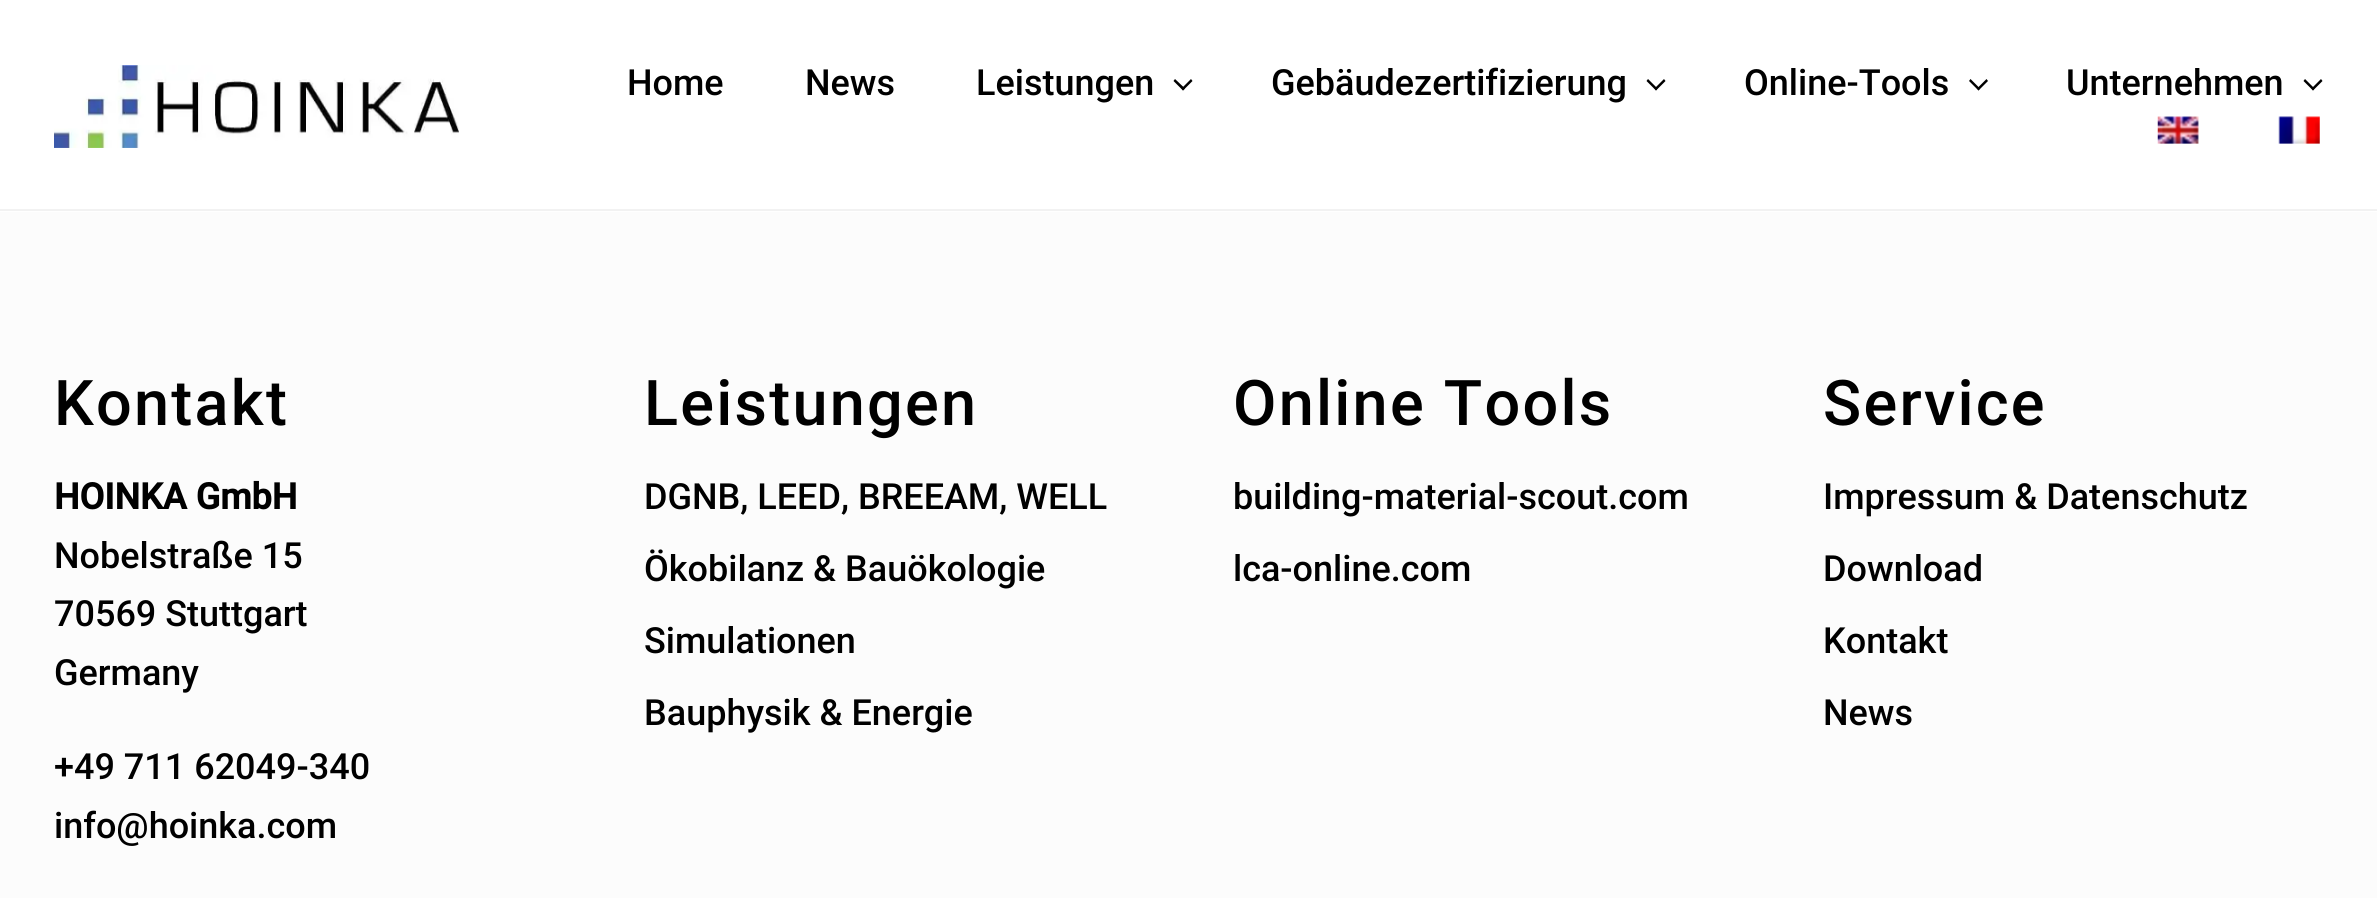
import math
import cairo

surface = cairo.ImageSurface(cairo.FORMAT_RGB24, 2377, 898)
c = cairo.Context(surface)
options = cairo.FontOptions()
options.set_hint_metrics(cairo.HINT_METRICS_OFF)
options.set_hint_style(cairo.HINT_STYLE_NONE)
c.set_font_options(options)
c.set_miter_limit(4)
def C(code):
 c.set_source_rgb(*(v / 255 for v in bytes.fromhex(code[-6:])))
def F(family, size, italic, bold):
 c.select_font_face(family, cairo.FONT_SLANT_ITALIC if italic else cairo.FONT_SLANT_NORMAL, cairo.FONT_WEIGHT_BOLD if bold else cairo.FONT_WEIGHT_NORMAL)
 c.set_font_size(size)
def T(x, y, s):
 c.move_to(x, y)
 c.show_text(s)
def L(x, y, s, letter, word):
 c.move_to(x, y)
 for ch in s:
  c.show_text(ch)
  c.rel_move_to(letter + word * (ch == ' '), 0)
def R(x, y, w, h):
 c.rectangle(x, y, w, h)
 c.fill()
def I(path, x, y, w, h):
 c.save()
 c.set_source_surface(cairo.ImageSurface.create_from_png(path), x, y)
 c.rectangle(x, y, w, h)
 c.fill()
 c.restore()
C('fcfcfc')
c.paint()
C('ffffff')
R(0,0,2377,212)
C('f2f2f2')
R(0,209,2377,2)
I('1.png',54,65,405,83)
F('Roboto Medium',36,0,0)
C('000000')
T(627,95,'Home')
T(805,95,'News')
T(976,95,'Leistungen')
c.new_path()
c.move_to(1191,79)
c.line_to(1192.5,81)
c.line_to(1183,90.5)
c.line_to(1181.5,88.5)
c.close_path()
c.fill()
c.new_path()
c.move_to(1175,79)
c.line_to(1185,88.5)
c.line_to(1183,90.5)
c.line_to(1173.5,81)
c.close_path()
c.fill()
T(1271,95,'Gebäudezertifizierung')
c.new_path()
c.move_to(1664,79)
c.line_to(1665.5,81)
c.line_to(1656,90.5)
c.line_to(1654.5,88.5)
c.close_path()
c.fill()
c.new_path()
c.move_to(1648,79)
c.line_to(1657.5,88.5)
c.line_to(1656,90.5)
c.line_to(1646.5,81)
c.close_path()
c.fill()
T(1744,95,'Online-Tools')
c.new_path()
c.move_to(1986.5,79)
c.line_to(1988,81)
c.line_to(1978.5,90.5)
c.line_to(1977,88.5)
c.close_path()
c.fill()
c.new_path()
c.move_to(1970.5,79)
c.line_to(1980,88.5)
c.line_to(1978.5,90.5)
c.line_to(1969,81)
c.close_path()
c.fill()
T(2066,95,'Unternehmen')
c.new_path()
c.move_to(2321,79)
c.line_to(2322.5,81)
c.line_to(2313,90.5)
c.line_to(2311.5,88.5)
c.close_path()
c.fill()
c.new_path()
c.move_to(2305,79)
c.line_to(2314.5,88.5)
c.line_to(2313,90.5)
c.line_to(2303.5,81)
c.close_path()
c.fill()
I('2.png',2157,116,42,28)
I('3.png',2278,116,42,28)
F('Roboto Medium',63,0,0)
L(54,425,'Kontakt',2.25,0)
F('Roboto',36,0,1)
T(54,509,'HOINKA GmbH')
F('Roboto Medium',36,0,0)
T(54,568,'Nobelstraße 15')
T(54,626,'70569 Stuttgart')
T(54,685,'Germany')
T(54,779,'+49 711 62049-340')
T(54,838,'info@hoinka.com')
F('Roboto Medium',63,0,0)
L(644,425,'Leistungen',2.25,0)
F('Roboto Medium',36,0,0)
T(644,509,'DGNB, LEED, BREEAM, WELL')
T(644,581,'Ökobilanz & Bauökologie')
T(644,653,'Simulationen')
T(644,725,'Bauphysik & Energie')
F('Roboto Medium',63,0,0)
L(1233,425,'Online Tools',2.25,0)
F('Roboto Medium',36,0,0)
T(1233,509,'building-material-scout.com')
T(1233,581,'lca-online.com')
F('Roboto Medium',63,0,0)
L(1823,425,'Service',2.25,0)
F('Roboto Medium',36,0,0)
T(1823,509,'Impressum & Datenschutz')
T(1823,581,'Download')
T(1823,653,'Kontakt')
T(1823,725,'News')
surface.write_to_png('o.png')
